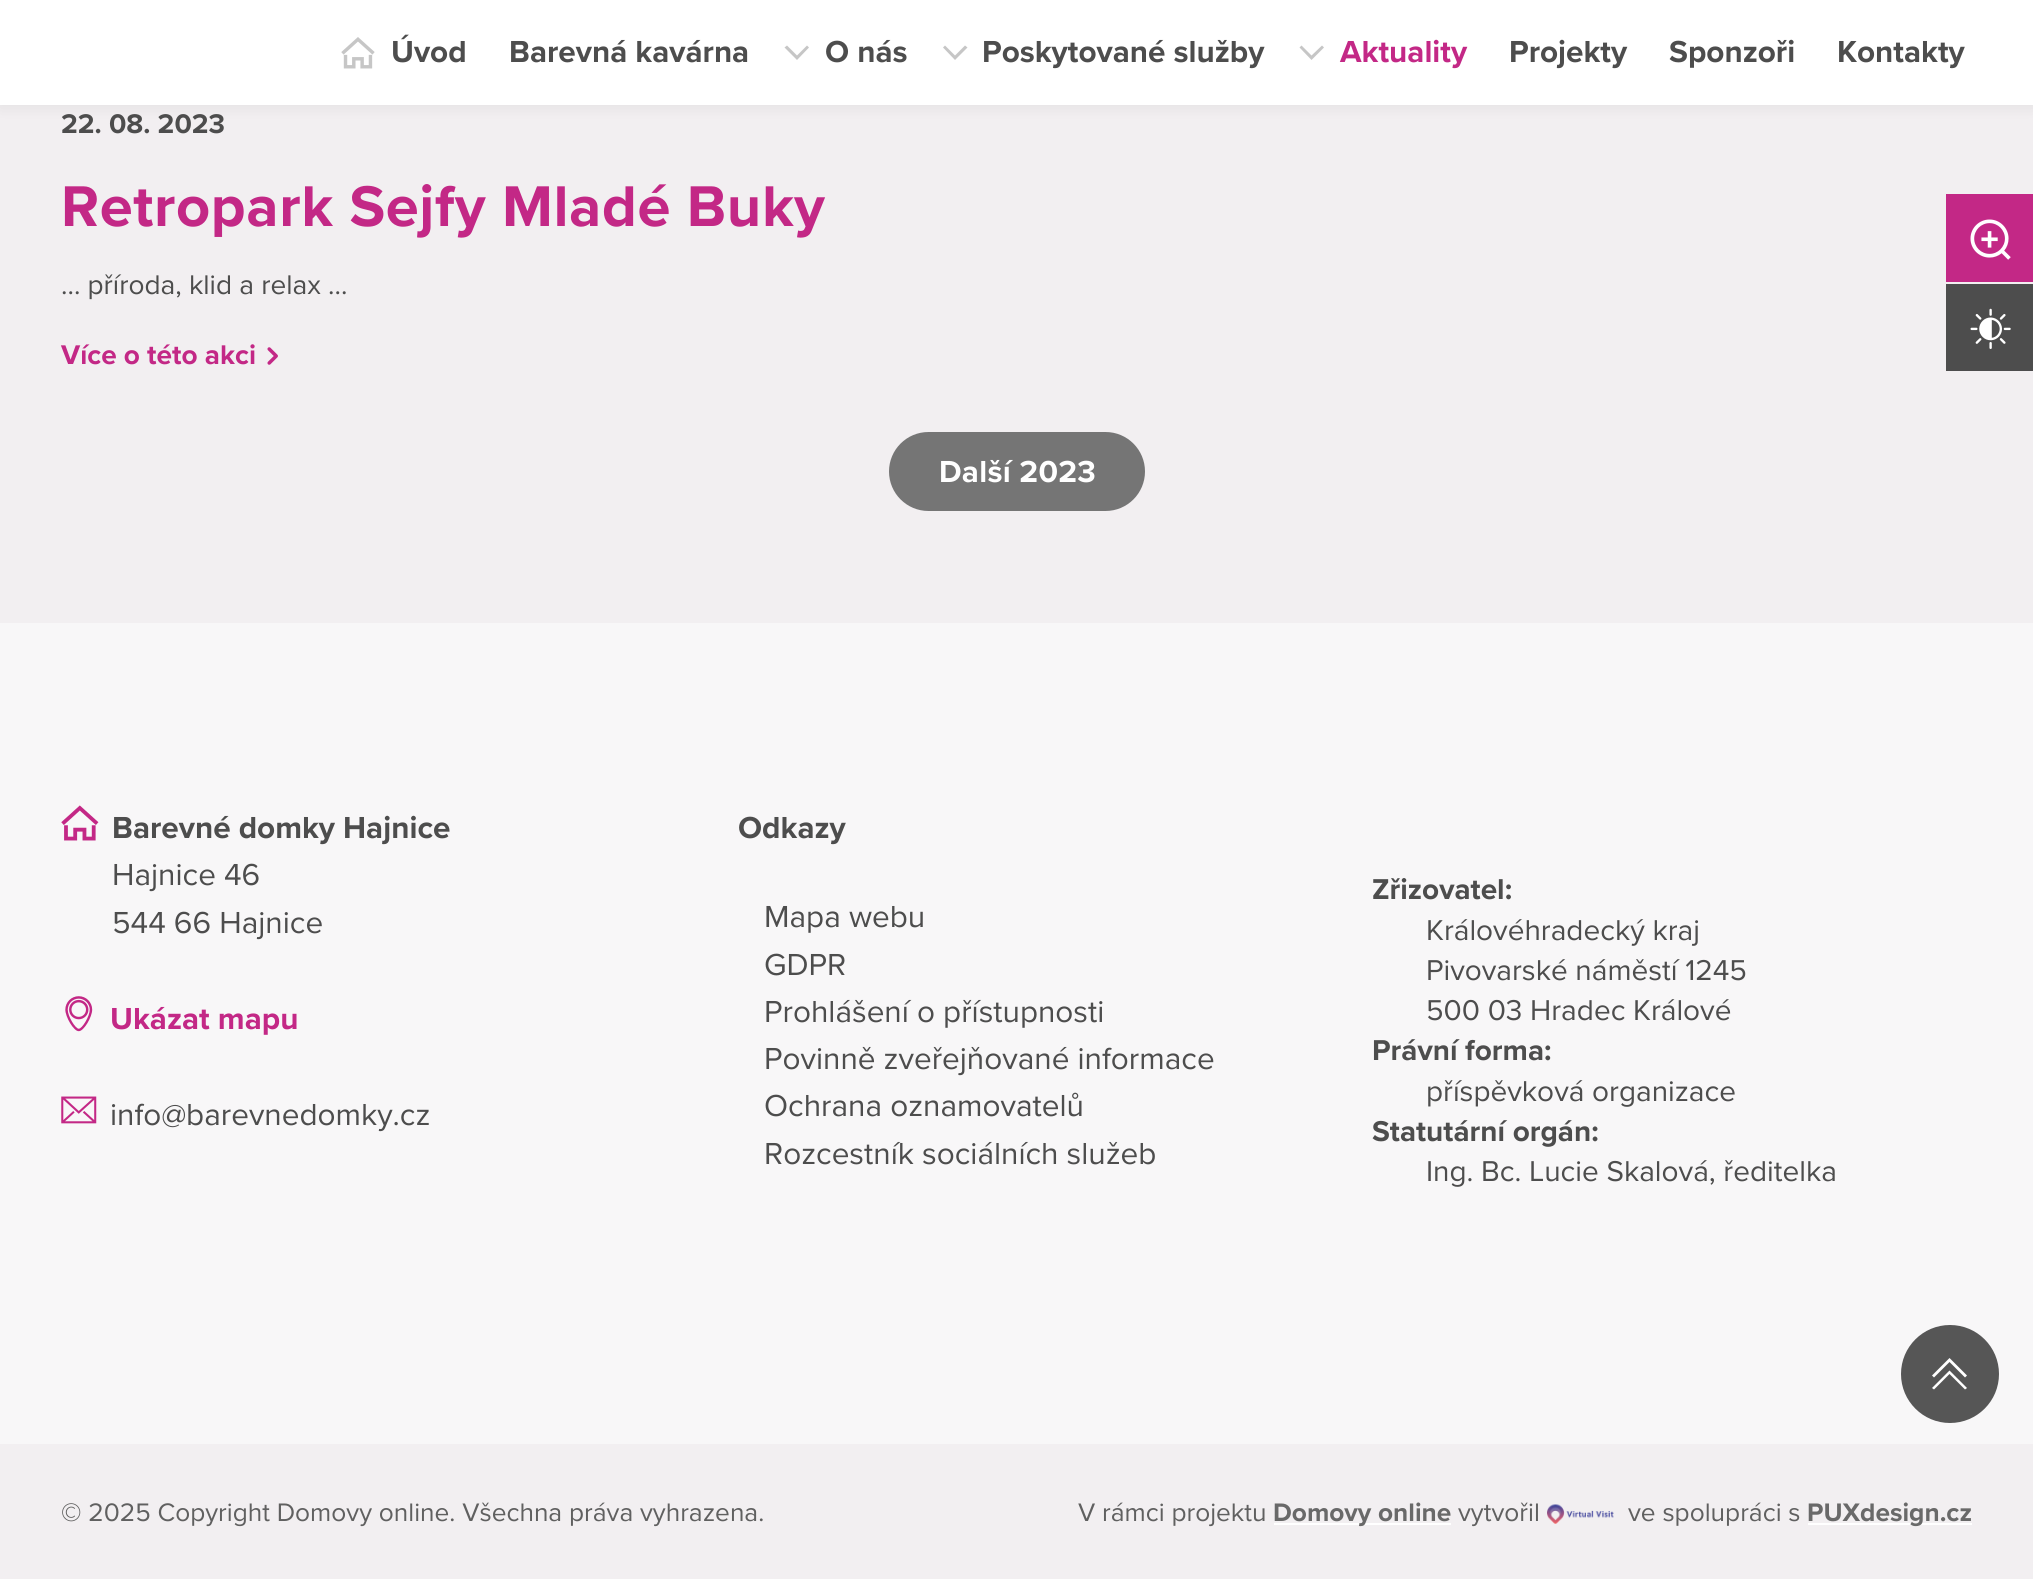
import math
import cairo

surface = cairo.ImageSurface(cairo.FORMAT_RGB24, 2033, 1579)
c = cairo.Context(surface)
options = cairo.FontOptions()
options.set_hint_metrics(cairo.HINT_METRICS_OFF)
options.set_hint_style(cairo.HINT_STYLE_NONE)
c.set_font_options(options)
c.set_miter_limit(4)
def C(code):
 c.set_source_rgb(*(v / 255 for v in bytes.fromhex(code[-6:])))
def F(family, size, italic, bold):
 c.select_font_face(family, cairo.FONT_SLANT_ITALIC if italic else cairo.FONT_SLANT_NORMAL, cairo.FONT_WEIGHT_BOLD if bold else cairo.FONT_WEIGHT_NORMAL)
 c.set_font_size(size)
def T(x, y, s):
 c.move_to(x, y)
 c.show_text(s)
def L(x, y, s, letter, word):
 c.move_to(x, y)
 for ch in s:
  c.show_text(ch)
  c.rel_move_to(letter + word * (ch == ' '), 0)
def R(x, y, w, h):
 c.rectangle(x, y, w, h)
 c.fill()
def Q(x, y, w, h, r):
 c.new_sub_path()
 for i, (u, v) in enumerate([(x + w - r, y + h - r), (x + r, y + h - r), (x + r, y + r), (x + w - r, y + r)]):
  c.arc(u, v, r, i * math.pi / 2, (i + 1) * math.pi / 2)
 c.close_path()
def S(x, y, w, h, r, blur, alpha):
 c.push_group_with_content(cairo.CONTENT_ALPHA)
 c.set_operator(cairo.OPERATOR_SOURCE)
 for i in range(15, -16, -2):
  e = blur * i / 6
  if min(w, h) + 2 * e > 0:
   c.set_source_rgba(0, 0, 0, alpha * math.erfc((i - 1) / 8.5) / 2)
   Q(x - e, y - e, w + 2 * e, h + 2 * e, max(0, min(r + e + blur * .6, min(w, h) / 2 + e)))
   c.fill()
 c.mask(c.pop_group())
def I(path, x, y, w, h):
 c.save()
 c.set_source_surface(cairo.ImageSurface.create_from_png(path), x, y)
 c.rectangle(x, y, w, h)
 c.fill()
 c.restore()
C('f8f7f8')
c.paint()
C('f2eff1')
R(0,105,2033,518)
C('000000')
S(0,-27,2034,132,0,9,.08)
C('ffffff')
R(0,0,2033,105)
I('1.png',341,37,34,32)
F('Proxima Nova',31.5,0,1)
C('4d4d4d')
T(391,62,'Úvod')
T(509,62,'Barevná kavárna')
C('c6c6c6')
c.new_path()
c.move_to(797,60)
c.line_to(809,47.5)
c.line_to(807,45.5)
c.line_to(797,55.5)
c.line_to(787,45.5)
c.line_to(784.5,47.5)
c.close_path()
c.fill()
C('4d4d4d')
T(825,62,'O nás')
C('c6c6c6')
c.new_path()
c.move_to(955,60)
c.line_to(967.5,47.5)
c.line_to(965,45.5)
c.line_to(955,55.5)
c.line_to(945,45.5)
c.line_to(943,47.5)
c.close_path()
c.fill()
C('4d4d4d')
T(982,62,'Poskytované služby')
C('c6c6c6')
c.new_path()
c.move_to(1311.5,60)
c.line_to(1324,47.5)
c.line_to(1322,45.5)
c.line_to(1311.5,55.5)
c.line_to(1301.5,45.5)
c.line_to(1299.5,47.5)
c.close_path()
c.fill()
C('c32886')
T(1340,62,'Aktuality')
C('4d4d4d')
T(1509,62,'Projekty')
T(1669,62,'Sponzoři')
T(1837,62,'Kontakty')
F('Proxima Nova',28,0,1)
T(61,133,'22. 08. 2023')
F('Proxima Nova',59.5,0,1)
C('c32886')
L(61,226,'Retropark Sejfy Mladé Buky',.6,0)
F('Proxima Nova',28,0,0)
C('4d4d4d')
T(61,294,'... příroda, klid a relax ...')
F('Proxima Nova',28,0,1)
C('c32886')
T(61,364,'Více o této akci')
I('2.png',267,347,11,18)
C('757575')
Q(889,432,256,79,39.5)
c.fill()
F('Proxima Nova',31.5,0,1)
C('ffffff')
L(939,482,'Další 2023',.25,0)
C('565656')
c.new_path()
c.arc(1950,1374,49,0,2 * math.pi)
c.fill()
C('ffffff')
c.new_path()
c.move_to(1949.5,1370.5)
c.line_to(1967,1388)
c.line_to(1965,1389.5)
c.line_to(1949.5,1374)
c.line_to(1934,1389.5)
c.line_to(1932,1388)
c.close_path()
c.move_to(1949.5,1362)
c.line_to(1965,1377.5)
c.line_to(1967,1375.5)
c.line_to(1949.5,1358)
c.line_to(1932,1375.5)
c.line_to(1934,1377.5)
c.close_path()
c.fill()
C('c32886')
R(1946,194,87,88)
I('3.png',1970,219,41,41)
C('4d4d4d')
R(1946,284,87,87)
I('4.png',1970,308,41,41)
I('5.png',61,805,38,36)
T(112,838,'Barevné domky Hajnice')
F('Proxima Nova',31.5,0,0)
T(112,885,'Hajnice 46')
T(112,933,'544 66 Hajnice')
I('6.png',65,996,28,36)
F('Proxima Nova',31.5,0,1)
C('c32886')
T(110,1029,'Ukázat mapu')
I('7.png',61,1096,36,28)
F('Proxima Nova',31.5,0,0)
C('4d4d4d')
T(110,1125,'info@barevnedomky.cz')
F('Proxima Nova',31.5,0,1)
T(738,838,'Odkazy')
F('Proxima Nova',31.5,0,0)
T(764,927,'Mapa webu')
T(764,975,'GDPR')
T(764,1022,'Prohlášení o přístupnosti')
T(764,1069,'Povinně zveřejňované informace')
T(764,1116,'Ochrana oznamovatelů')
T(764,1164,'Rozcestník sociálních služeb')
F('Proxima Nova',29.75,0,1)
T(1372,899,'Zřizovatel:')
F('Proxima Nova',29.75,0,0)
T(1426,940,'Královéhradecký kraj')
T(1426,980,'Pivovarské náměstí 1245')
T(1426,1020,'500 03 Hradec Králové')
F('Proxima Nova',29.75,0,1)
T(1372,1060,'Právní forma:')
F('Proxima Nova',29.75,0,0)
T(1426,1101,'příspěvková organizace')
F('Proxima Nova',29.75,0,1)
T(1372,1141,'Statutární orgán:')
F('Proxima Nova',29.75,0,0)
T(1426,1181,'Ing. Bc. Lucie Skalová, ředitelka')
C('f2eff1')
R(0,1444,2033,135)
F('Proxima Nova',26.25,0,0)
C('606060')
T(61,1521,'© 2025 Copyright Domovy online. Všechna práva vyhrazena.')
T(1078,1521,'V rámci projektu')
C('ffffff')
R(1274,1523,177,2)
F('Proxima Nova',26.25,0,1)
C('696969')
T(1273,1521,'Domovy online')
F('Proxima Nova',26.25,0,0)
C('606060')
T(1458,1521,'vytvořil')
I('8.png',1547,1504,67,20)
T(1628,1521,'ve spolupráci s')
C('ffffff')
R(1808,1523,164,2)
F('Proxima Nova',26.25,0,1)
C('696969')
T(1807,1521,'PUXdesign.cz')
surface.write_to_png('o.png')
